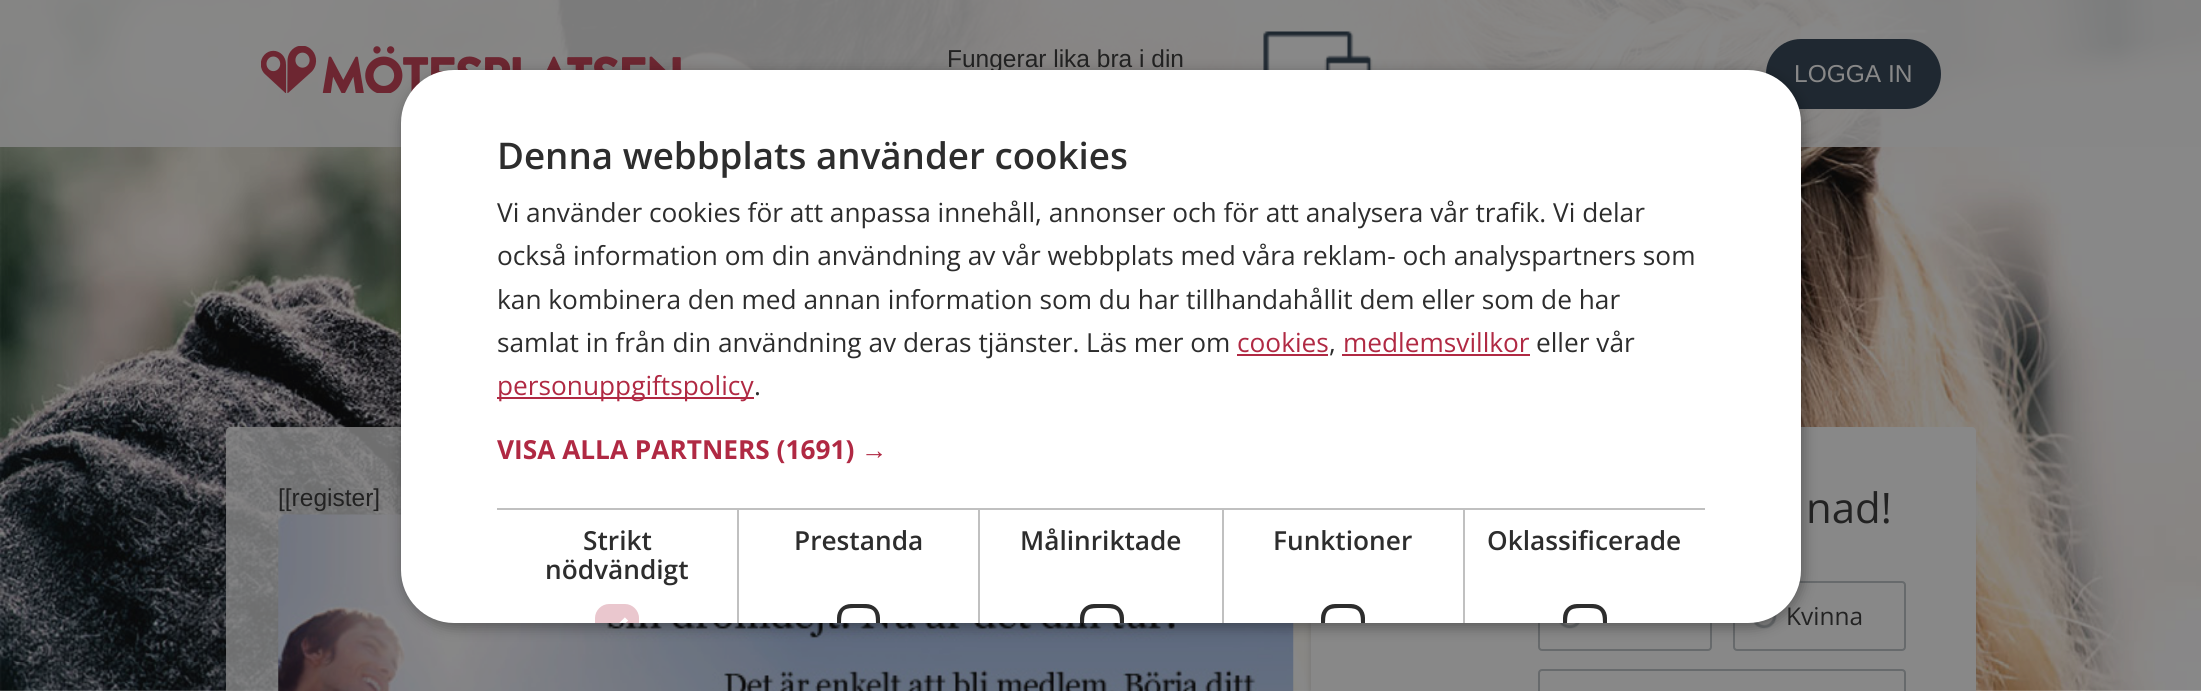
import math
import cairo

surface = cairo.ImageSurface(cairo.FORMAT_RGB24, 2201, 691)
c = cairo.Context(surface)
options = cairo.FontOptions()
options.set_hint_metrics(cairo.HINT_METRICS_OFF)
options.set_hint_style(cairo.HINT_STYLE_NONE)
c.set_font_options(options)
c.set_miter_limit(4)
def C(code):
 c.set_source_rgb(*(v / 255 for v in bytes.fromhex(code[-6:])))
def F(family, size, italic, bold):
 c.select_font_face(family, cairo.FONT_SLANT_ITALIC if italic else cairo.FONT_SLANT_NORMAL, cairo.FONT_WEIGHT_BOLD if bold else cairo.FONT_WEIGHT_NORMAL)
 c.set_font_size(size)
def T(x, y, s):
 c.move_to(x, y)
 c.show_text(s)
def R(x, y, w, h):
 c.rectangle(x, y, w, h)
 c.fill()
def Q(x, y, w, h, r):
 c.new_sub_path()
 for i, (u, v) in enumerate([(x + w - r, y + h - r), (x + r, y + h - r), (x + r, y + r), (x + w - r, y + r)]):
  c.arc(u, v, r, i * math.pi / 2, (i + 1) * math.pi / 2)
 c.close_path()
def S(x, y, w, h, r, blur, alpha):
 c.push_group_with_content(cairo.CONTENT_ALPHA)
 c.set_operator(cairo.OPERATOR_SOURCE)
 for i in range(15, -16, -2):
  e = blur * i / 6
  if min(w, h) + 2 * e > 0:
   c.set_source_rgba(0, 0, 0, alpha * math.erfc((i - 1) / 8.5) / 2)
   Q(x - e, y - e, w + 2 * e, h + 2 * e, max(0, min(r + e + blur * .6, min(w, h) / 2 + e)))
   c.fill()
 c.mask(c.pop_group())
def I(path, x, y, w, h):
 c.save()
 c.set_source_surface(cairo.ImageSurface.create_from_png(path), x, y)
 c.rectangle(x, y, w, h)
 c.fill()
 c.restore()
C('ffffff')
c.paint()
I('1.png',0,0,2201,691)
c.set_source_rgba(0.533,0.533,0.533,0.9)
R(0,0,2201,147)
I('2.png',261,46,420,47)
F('Liberation Sans',24.5,0,0)
C('222222')
T(947,67,'Fungerar lika bra i din')
I('3.png',1263,31,110,39)
C('1f2831')
Q(1766,39,175,70,35)
c.fill()
C('888888')
T(1794,82,'LOGGA IN')
c.set_source_rgba(0.533,0.533,0.533,0.8)
c.new_path()
c.move_to(231,427)
c.line_to(1971,427)
c.curve_to(1974,427,1976,429,1976,432)
c.line_to(1976,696)
c.line_to(226,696)
c.line_to(226,432)
c.curve_to(226,429,228,427,231,427)
c.close_path()
c.fill()
I('4.png',278,514,1016,177)
C('090909')
S(1309,434,665,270,5,2.5,.1)
C('888888')
c.new_path()
c.move_to(1311,427)
c.line_to(1971,427)
c.curve_to(1974,427,1976,429,1976,432)
c.line_to(1976,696)
c.line_to(1311,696)
c.close_path()
c.fill()
Q(1539,582,172,68,3)
C('676a6c')
c.stroke()
I('5.png',1559,623,21,6)
Q(1734,582,171,68,3)
c.stroke()
I('6.png',1752,614,25,15)
C('000000')
S(403,74,1400,553,53,7,.35)
F('Open Sans',24.5,0,0)
C('222222')
T(1786,625,'Kvinna')
C('ffffff')
Q(401,70,1400,553,53)
c.fill()
F('Open Sans SemiBold',36.75,0,0)
C('2d2d2d')
T(497,169,'Denna webbplats använder cookies')
F('Open Sans',26.25,0,0)
T(497,222,'Vi använder cookies för att anpassa innehåll, annonser och för att analysera vår trafik. Vi delar')
T(497,265,'också information om din användning av vår webbplats med våra reklam- och analyspartners som')
T(497,309,'kan kombinera den med annan information som du har tillhandahållit dem eller som de har')
T(497,352,'samlat in från din användning av deras tjänster. Läs mer om')
C('b02943')
T(1237,352,'cookies')
C('2d2d2d')
T(1329,352,',')
C('b02943')
R(1237,354,91,2)
R(1342,354,188,2)
T(1343,352,'medlemsvillkor')
C('2d2d2d')
T(1536,352,'eller vår')
C('b02943')
R(497,397,257,2)
T(497,395,'personuppgiftspolicy')
C('2d2d2d')
T(754,395,'.')
F('Open Sans',26.25,0,1)
C('b02943')
T(497,459,'VISA ALLA PARTNERS (1691)')
F('Liberation Sans',26.25,0,1)
T(861,459,'→')
C('c0c0c0')
R(497,508,726,2)
R(737,508,2,115)
F('Open Sans SemiBold',26.25,0,0)
C('2d2d2d')
T(583,550,'Strikt')
T(545,579,'nödvändigt')
C('eac7ce')
c.new_path()
c.move_to(609,604)
c.line_to(625,604)
c.curve_to(632.5,604,639,610.5,639,618)
c.line_to(639,623)
c.line_to(595,623)
c.line_to(595,618)
c.curve_to(595,610.5,601.5,604,609,604)
c.close_path()
c.fill()
c.save()
Q(401,70,1400,553,53)
c.clip()
c.new_path()
c.move_to(607,626.5)
c.line_to(613,632.5)
c.line_to(626.5,619)
C('ffffff')
c.set_line_width(4.6)
c.stroke()
c.restore()
C('c0c0c0')
R(978,508,2,115)
C('2d2d2d')
T(794,550,'Prestanda')
c.new_path()
c.move_to(851,604)
c.curve_to(843,604,837,610,837,618)
c.line_to(837,623)
c.line_to(841,623)
c.curve_to(841,608,845,608,858,608)
c.curve_to(872,608,876,608,876,623)
c.line_to(880,623)
c.line_to(880,618)
c.curve_to(880,610,874,604,866,604)
c.close_path()
c.fill()
C('c0c0c0')
R(1222,508,2,115)
C('2d2d2d')
T(1020,550,'Målinriktade')
c.new_path()
c.move_to(1094,604)
c.curve_to(1086,604,1080,610,1080,618)
c.line_to(1080,623)
c.line_to(1084,623)
c.curve_to(1084,608,1089,608,1102,608)
c.curve_to(1115,608,1120,608,1120,623)
c.line_to(1124,623)
c.line_to(1124,618)
c.curve_to(1124,610,1118,604,1110,604)
c.close_path()
c.fill()
C('c0c0c0')
R(1223,508,482,2)
R(1463,508,2,115)
C('2d2d2d')
T(1273,550,'Funktioner')
c.new_path()
c.move_to(1335,604)
c.curve_to(1327,604,1321,610,1321,618)
c.line_to(1321,623)
c.line_to(1325,623)
c.curve_to(1325,608,1330,608,1343,608)
c.curve_to(1356,608,1361,608,1361,623)
c.line_to(1365,623)
c.line_to(1365,618)
c.curve_to(1365,610,1359,604,1351,604)
c.close_path()
c.fill()
T(1487,550,'Oklassificerade')
c.new_path()
c.move_to(1577,604)
c.curve_to(1569,604,1563,610,1563,618)
c.line_to(1563,623)
c.line_to(1567,623)
c.curve_to(1567,608,1572,608,1585,608)
c.curve_to(1598,608,1603,608,1603,623)
c.line_to(1607,623)
c.line_to(1607,618)
c.curve_to(1607,610,1601,604,1593,604)
c.close_path()
c.fill()
F('Liberation Sans',24.5,0,0)
C('222222')
T(278,506,'[[register]')
F('Open Sans',42,0,0)
T(1806,523,'nad!')
Q(1539,670,366,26,3)
C('676a6c')
c.stroke()
surface.write_to_png('o.png')
